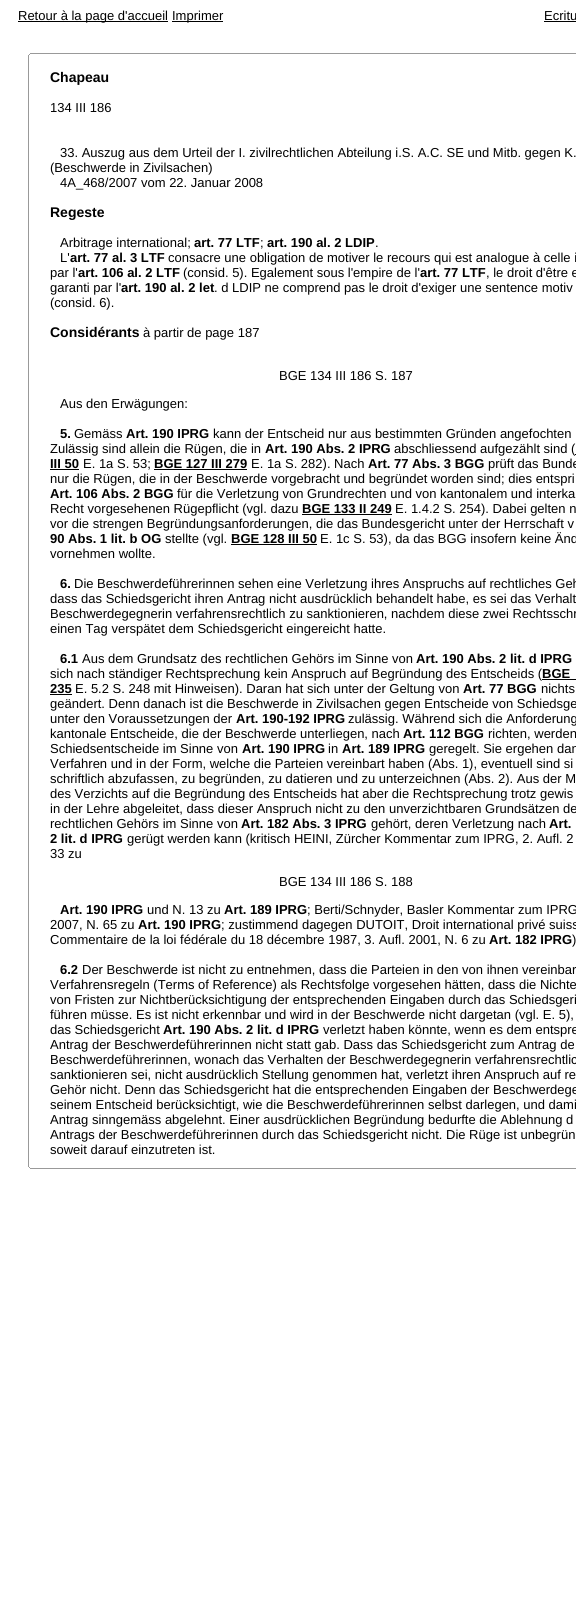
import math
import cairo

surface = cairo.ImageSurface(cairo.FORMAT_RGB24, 576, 1616)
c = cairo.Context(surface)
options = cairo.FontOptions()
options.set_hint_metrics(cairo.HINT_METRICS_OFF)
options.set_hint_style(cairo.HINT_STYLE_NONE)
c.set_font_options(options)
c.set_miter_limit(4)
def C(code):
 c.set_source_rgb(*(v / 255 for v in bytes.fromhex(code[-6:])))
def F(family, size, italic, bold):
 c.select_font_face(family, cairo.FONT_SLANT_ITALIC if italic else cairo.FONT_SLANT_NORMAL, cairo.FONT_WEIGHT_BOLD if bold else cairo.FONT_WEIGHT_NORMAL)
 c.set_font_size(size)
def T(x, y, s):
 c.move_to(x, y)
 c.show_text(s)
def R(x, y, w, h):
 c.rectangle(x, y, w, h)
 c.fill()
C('ffffff')
c.paint()
C('000000')
R(18,21,150,1)
F('Liberation Sans',13,0,0)
T(18,20,'Retour à la page d\'accueil')
R(172,21,51,1)
T(172,20,'Imprimer')
T(544,20,'Ecritu')
R(544,21,32,1)
C('999999')
R(30,53,546,1)
R(29,54,1,1)
R(28,55,1,1112)
F('Liberation Sans',14,0,1)
C('000000')
T(50,82,'Chapeau')
F('Liberation Sans',13,0,0)
T(50,112,'134 III 186')
T(60,157,'33. Auszug aus dem Urteil der I. zivilrechtlichen Abteilung i.S. A.C. SE und Mitb. gegen K.')
T(50,172,'(Beschwerde in Zivilsachen)')
T(60,187,'4A_468/2007 vom 22. Januar 2008')
F('Liberation Sans',14,0,1)
T(50,217,'Regeste')
F('Liberation Sans',13,0,0)
T(60,247,'Arbitrage international;')
F('Liberation Sans',13,0,1)
T(194,247,'art. 77 LTF')
F('Liberation Sans',13,0,0)
T(260,247,';')
F('Liberation Sans',13,0,1)
T(267,247,'art. 190 al. 2 LDIP')
F('Liberation Sans',13,0,0)
T(375,247,'.')
T(60,262,'L\'')
F('Liberation Sans',13,0,1)
T(70,262,'art. 77 al. 3 LTF')
F('Liberation Sans',13,0,0)
T(168,262,'consacre une obligation de motiver le recours qui est analogue à celle i')
T(50,277,'par l\'')
F('Liberation Sans',13,0,1)
T(78,277,'art. 106 al. 2 LTF')
F('Liberation Sans',13,0,0)
T(183,277,'(consid. 5). Egalement sous l\'empire de l\'')
F('Liberation Sans',13,0,1)
T(420,277,'art. 77 LTF')
F('Liberation Sans',13,0,0)
T(486,277,', le droit d\'être e')
T(50,292,'garanti par l\'')
F('Liberation Sans',13,0,1)
T(121,292,'art. 190 al. 2 let')
F('Liberation Sans',13,0,0)
T(214,292,'. d LDIP ne comprend pas le droit d\'exiger une sentence motiv')
T(50,307,'(consid. 6).')
F('Liberation Sans',14,0,1)
T(50,337,'Considérants')
F('Liberation Sans',13,0,0)
T(143,337,'à partir de page 187')
T(279,380,'BGE 134 III 186 S. 187')
T(60,408,'Aus den Erwägungen:')
F('Liberation Sans',13,0,1)
T(60,438,'5.')
F('Liberation Sans',13,0,0)
T(74,438,'Gemäss')
F('Liberation Sans',13,0,1)
T(126,438,'Art. 190 IPRG')
F('Liberation Sans',13,0,0)
T(213,438,'kann der Entscheid nur aus bestimmten Gründen angefochten')
T(50,453,'Zulässig sind allein die Rügen, die in')
F('Liberation Sans',13,0,1)
T(265,453,'Art. 190 Abs. 2 IPRG')
F('Liberation Sans',13,0,0)
T(394,453,'abschliessend aufgezählt sind (')
F('Liberation Sans',13,0,1)
T(50,468,'III 50')
R(575,454,1,1)
R(50,469,29,1)
F('Liberation Sans',13,0,0)
T(83,468,'E. 1a S. 53;')
F('Liberation Sans',13,0,1)
T(154,468,'BGE 127 III 279')
R(154,469,93,1)
F('Liberation Sans',13,0,0)
T(251,468,'E. 1a S. 282). Nach')
F('Liberation Sans',13,0,1)
T(368,468,'Art. 77 Abs. 3 BGG')
F('Liberation Sans',13,0,0)
T(488,468,'prüft das Bunde')
T(50,483,'nur die Rügen, die in der Beschwerde vorgebracht und begründet worden sind; dies entspri')
F('Liberation Sans',13,0,1)
T(50,498,'Art. 106 Abs. 2 BGG')
F('Liberation Sans',13,0,0)
T(177,498,'für die Verletzung von Grundrechten und von kantonalem und interka')
T(50,513,'Recht vorgesehenen Rügepflicht (vgl. dazu')
F('Liberation Sans',13,0,1)
T(302,513,'BGE 133 II 249')
R(302,514,90,1)
F('Liberation Sans',13,0,0)
T(395,513,'E. 1.4.2 S. 254). Dabei gelten n')
T(50,528,'vor die strengen Begründungsanforderungen, die das Bundesgericht unter der Herrschaft v')
F('Liberation Sans',13,0,1)
T(50,543,'90 Abs. 1 lit. b OG')
F('Liberation Sans',13,0,0)
T(165,543,'stellte (vgl.')
F('Liberation Sans',13,0,1)
T(231,543,'BGE 128 III 50')
R(231,544,86,1)
F('Liberation Sans',13,0,0)
T(320,543,'E. 1c S. 53), da das BGG insofern keine Änd')
T(50,558,'vornehmen wollte.')
F('Liberation Sans',13,0,1)
T(60,588,'6.')
F('Liberation Sans',13,0,0)
T(74,588,'Die Beschwerdeführerinnen sehen eine Verletzung ihres Anspruchs auf rechtliches Geh')
T(50,603,'dass das Schiedsgericht ihren Antrag nicht ausdrücklich behandelt habe, es sei das Verhalt')
T(50,618,'Beschwerdegegnerin verfahrensrechtlich zu sanktionieren, nachdem diese zwei Rechtsschr')
T(50,633,'einen Tag verspätet dem Schiedsgericht eingereicht hatte.')
F('Liberation Sans',13,0,1)
T(60,663,'6.1')
F('Liberation Sans',13,0,0)
T(82,663,'Aus dem Grundsatz des rechtlichen Gehörs im Sinne von')
F('Liberation Sans',13,0,1)
T(416,663,'Art. 190 Abs. 2 lit. d IPRG')
F('Liberation Sans',13,0,0)
T(50,678,'sich nach ständiger Rechtsprechung kein Anspruch auf Begründung des Entscheids (')
F('Liberation Sans',13,0,1)
T(542,678,'BGE')
R(542,679,34,1)
T(50,693,'235')
R(50,694,22,1)
F('Liberation Sans',13,0,0)
T(75,693,'E. 5.2 S. 248 mit Hinweisen). Daran hat sich unter der Geltung von')
F('Liberation Sans',13,0,1)
T(463,693,'Art. 77 BGG')
F('Liberation Sans',13,0,0)
T(541,693,'nichts')
T(50,708,'geändert. Denn danach ist die Beschwerde in Zivilsachen gegen Entscheide von Schiedsge')
T(50,723,'unter den Voraussetzungen der')
T(348,723,'zulässig. Während sich die Anforderung')
T(50,738,'kantonale Entscheide, die der Beschwerde unterliegen, nach')
F('Liberation Sans',13,0,1)
T(403,738,'Art. 112 BGG')
F('Liberation Sans',13,0,0)
T(488,738,'richten, werden')
T(50,753,'Schiedsentscheide im Sinne von')
F('Liberation Sans',13,0,1)
T(242,753,'Art. 190 IPRG')
F('Liberation Sans',13,0,0)
T(328,753,'in')
F('Liberation Sans',13,0,1)
T(342,753,'Art. 189 IPRG')
F('Liberation Sans',13,0,0)
T(429,753,'geregelt. Sie ergehen dan')
T(50,768,'Verfahren und in der Form, welche die Parteien vereinbart haben (Abs. 1), eventuell sind si')
T(50,783,'schriftlich abzufassen, zu begründen, zu datieren und zu unterzeichnen (Abs. 2). Aus der M')
T(50,798,'des Verzichts auf die Begründung des Entscheids hat aber die Rechtsprechung trotz gewis')
T(50,813,'in der Lehre abgeleitet, dass dieser Anspruch nicht zu den unverzichtbaren Grundsätzen de')
T(50,828,'rechtlichen Gehörs im Sinne von')
F('Liberation Sans',13,0,1)
T(241,828,'Art. 182 Abs. 3 IPRG')
F('Liberation Sans',13,0,0)
T(371,828,'gehört, deren Verletzung nach')
F('Liberation Sans',13,0,1)
T(549,828,'Art.')
T(50,843,'2 lit. d IPRG')
F('Liberation Sans',13,0,0)
T(127,843,'gerügt werden kann (kritisch HEINI, Zürcher Kommentar zum IPRG, 2. Aufl. 2')
T(50,858,'33 zu')
T(279,886,'BGE 134 III 186 S. 188')
F('Liberation Sans',13,0,1)
T(236,723,'Art. 190-192 IPRG')
T(60,914,'Art. 190 IPRG')
F('Liberation Sans',13,0,0)
T(147,914,'und N. 13 zu')
F('Liberation Sans',13,0,1)
T(224,914,'Art. 189 IPRG')
F('Liberation Sans',13,0,0)
T(307,914,'; Berti/Schnyder, Basler Kommentar zum IPRG')
T(50,929,'2007, N. 65 zu')
F('Liberation Sans',13,0,1)
T(138,929,'Art. 190 IPRG')
F('Liberation Sans',13,0,0)
T(221,929,'; zustimmend dagegen DUTOIT, Droit international privé suiss')
T(50,944,'Commentaire de la loi fédérale du 18 décembre 1987, 3. Aufl. 2001, N. 6 zu')
F('Liberation Sans',13,0,1)
T(489,944,'Art. 182 IPRG')
F('Liberation Sans',13,0,0)
T(572,944,')')
F('Liberation Sans',13,0,1)
T(60,974,'6.2')
F('Liberation Sans',13,0,0)
T(82,974,'Der Beschwerde ist nicht zu entnehmen, dass die Parteien in den von ihnen vereinbar')
T(50,989,'Verfahrensregeln (Terms of Reference) als Rechtsfolge vorgesehen hätten, dass die Nichte')
T(50,1004,'von Fristen zur Nichtberücksichtigung der entsprechenden Eingaben durch das Schiedsgeri')
T(50,1019,'führen müsse. Es ist nicht erkennbar und wird in der Beschwerde nicht dargetan (vgl. E. 5),')
T(50,1034,'das Schiedsgericht')
F('Liberation Sans',13,0,1)
T(163,1034,'Art. 190 Abs. 2 lit. d IPRG')
F('Liberation Sans',13,0,0)
T(323,1034,'verletzt haben könnte, wenn es dem entspre')
T(50,1049,'Antrag der Beschwerdeführerinnen nicht statt gab. Dass das Schiedsgericht zum Antrag de')
T(50,1064,'Beschwerdeführerinnen, wonach das Verhalten der Beschwerdegegnerin verfahrensrechtlic')
T(50,1079,'sanktionieren sei, nicht ausdrücklich Stellung genommen hat, verletzt ihren Anspruch auf re')
T(50,1094,'Gehör nicht. Denn das Schiedsgericht hat die entsprechenden Eingaben der Beschwerdege')
T(50,1109,'seinem Entscheid berücksichtigt, wie die Beschwerdeführerinnen selbst darlegen, und dami')
T(50,1124,'Antrag sinngemäss abgelehnt. Einer ausdrücklichen Begründung bedurfte die Ablehnung d')
T(50,1139,'Antrags der Beschwerdeführerinnen durch das Schiedsgericht nicht. Die Rüge ist unbegrün')
T(50,1154,'soweit darauf einzutreten ist.')
C('999999')
R(29,1167,1,1)
R(30,1168,546,1)
surface.write_to_png('o.png')
